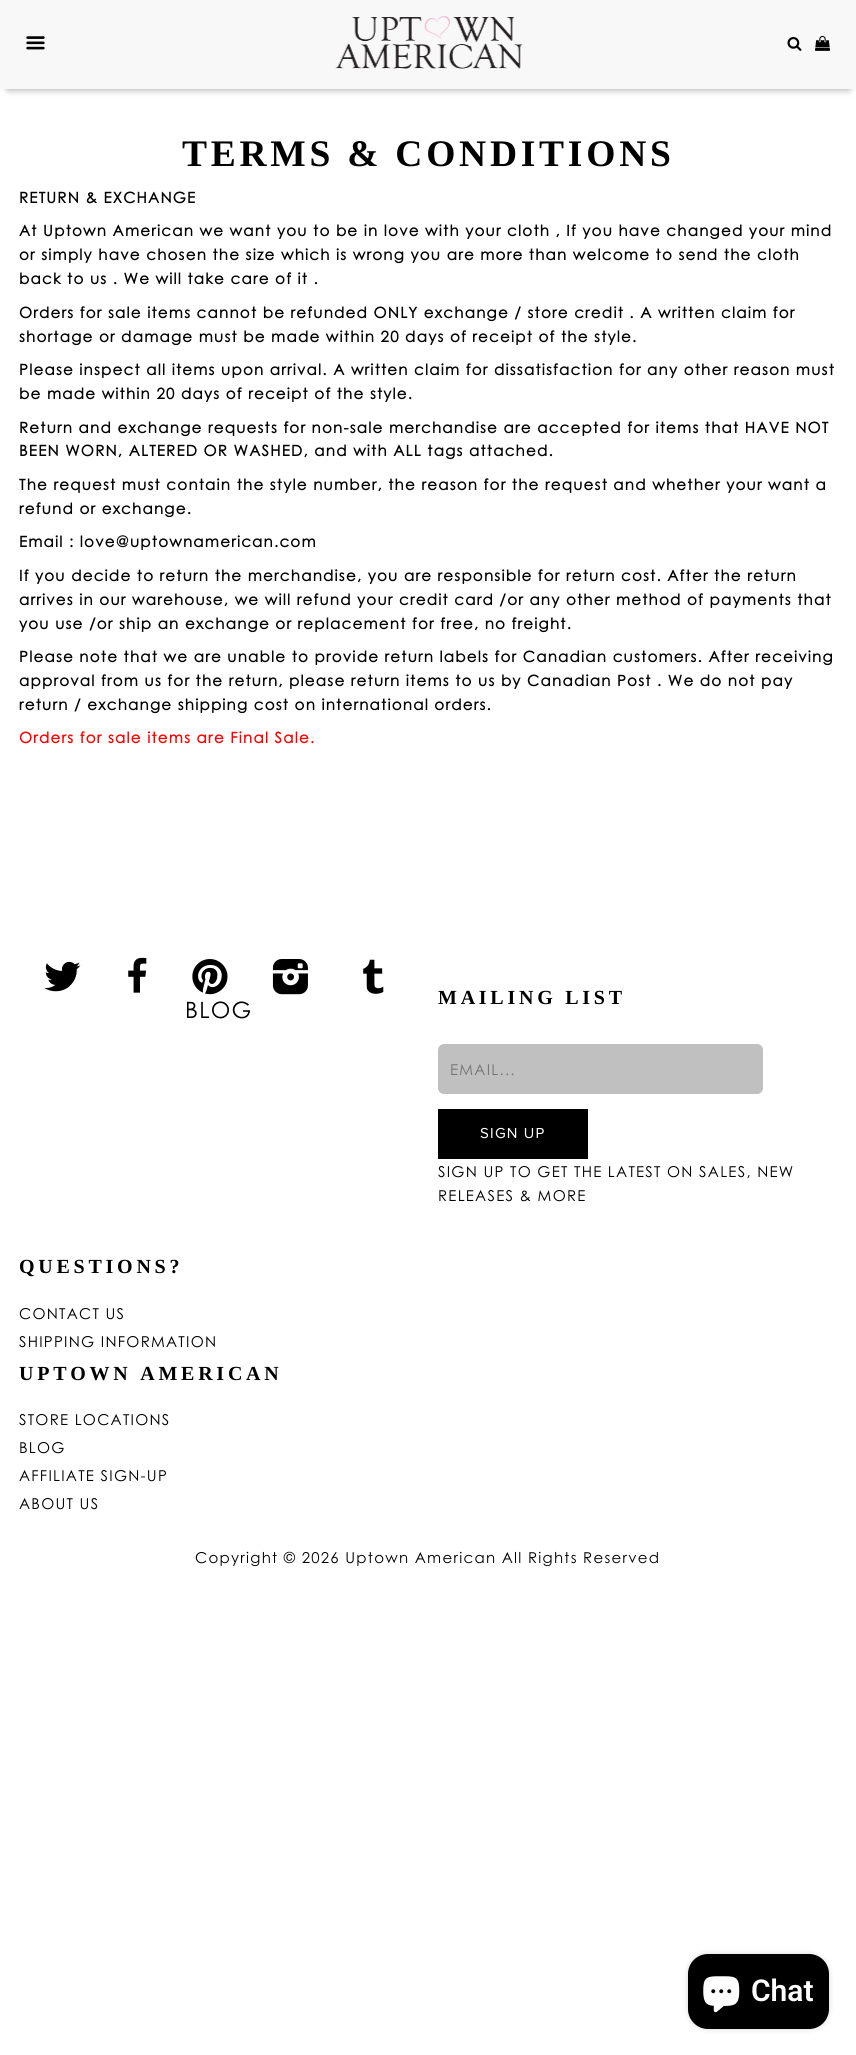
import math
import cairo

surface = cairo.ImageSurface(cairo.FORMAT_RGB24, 856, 2055)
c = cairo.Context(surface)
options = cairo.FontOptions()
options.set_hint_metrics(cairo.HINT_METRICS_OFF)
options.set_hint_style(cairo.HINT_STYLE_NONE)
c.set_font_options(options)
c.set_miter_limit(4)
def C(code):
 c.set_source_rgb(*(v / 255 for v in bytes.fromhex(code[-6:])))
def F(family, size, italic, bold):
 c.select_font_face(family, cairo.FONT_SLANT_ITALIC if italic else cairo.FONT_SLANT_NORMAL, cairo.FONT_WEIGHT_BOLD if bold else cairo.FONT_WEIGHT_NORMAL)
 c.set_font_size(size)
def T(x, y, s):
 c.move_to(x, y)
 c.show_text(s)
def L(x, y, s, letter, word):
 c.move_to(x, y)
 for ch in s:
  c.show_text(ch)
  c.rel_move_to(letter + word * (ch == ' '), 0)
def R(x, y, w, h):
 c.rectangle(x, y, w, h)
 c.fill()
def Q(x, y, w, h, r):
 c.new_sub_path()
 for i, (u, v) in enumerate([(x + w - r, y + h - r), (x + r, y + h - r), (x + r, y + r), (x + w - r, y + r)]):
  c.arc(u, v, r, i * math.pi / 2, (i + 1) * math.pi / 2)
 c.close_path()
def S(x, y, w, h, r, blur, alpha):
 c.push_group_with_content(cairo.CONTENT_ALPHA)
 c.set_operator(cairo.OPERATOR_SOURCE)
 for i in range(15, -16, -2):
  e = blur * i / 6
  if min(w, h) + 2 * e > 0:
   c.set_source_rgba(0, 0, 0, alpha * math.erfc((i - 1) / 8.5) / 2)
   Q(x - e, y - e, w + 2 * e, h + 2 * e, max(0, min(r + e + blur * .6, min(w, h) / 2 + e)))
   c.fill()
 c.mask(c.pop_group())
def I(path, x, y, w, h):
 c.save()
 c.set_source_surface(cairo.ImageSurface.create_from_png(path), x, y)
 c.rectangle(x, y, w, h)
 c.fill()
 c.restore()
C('ffffff')
c.paint()
C('f8f8f8')
R(0,0,856,89)
c.save()
c.set_fill_rule(cairo.FILL_RULE_EVEN_ODD)
c.new_path()
c.move_to(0,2)
c.line_to(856,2)
c.line_to(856,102)
c.line_to(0,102)
c.close_path()
c.move_to(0,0)
c.line_to(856,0)
c.line_to(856,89)
c.line_to(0,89)
c.close_path()
c.clip()
C('000000')
S(8,15,841,74,0,4,.4)
c.restore()
I('1.png',26,36,19,14)
I('2.png',335,16,188,53)
I('3.png',787,37,15,14)
I('4.png',815,35,15,16)
F('Liberation Serif',37.5,0,1)
C('000000')
L(182,166,'TERMS & CONDITIONS',3.75,0)
F('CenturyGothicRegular',15,0,1)
L(19,203,'RETURN & EXCHANGE',1.25,0)
L(19,236,'At Uptown American we want you to be in love with your cloth , If you have changed your mind',1.25,0)
L(19,260,'or simply have chosen the size which is wrong you are more than welcome to send the cloth',1.25,0)
L(19,284,'back to us . We will take care of it .',1.25,0)
L(19,318,'Orders for sale items cannot be refunded ONLY exchange / store credit . A written claim for',1.25,0)
L(19,342,'shortage or damage must be made within 20 days of receipt of the style.',1.25,0)
L(19,375,'Please inspect all items upon arrival. A written claim for dissatisfaction for any other reason must',1.25,0)
L(19,399,'be made within 20 days of receipt of the style.',1.25,0)
L(19,433,'Return and exchange requests for non-sale merchandise are accepted for items that HAVE NOT',1.25,0)
L(19,456,'BEEN WORN, ALTERED OR WASHED, and with ALL tags attached.',1.25,0)
L(19,490,'The request must contain the style number, the reason for the request and whether your want a',1.25,0)
L(19,514,'refund or exchange.',1.25,0)
L(19,547,'Email : love@uptownamerican.com',1.25,0)
L(19,581,'If you decide to return the merchandise, you are responsible for return cost. After the return',1.25,0)
L(19,605,'arrives in our warehouse, we will refund your credit card /or any other method of payments that',1.25,0)
L(19,629,'you use /or ship an exchange or replacement for free, no freight.',1.25,0)
L(19,662,'Please note that we are unable to provide return labels for Canadian customers. After receiving',1.25,0)
L(19,686,'approval from us for the return, please return items to us by Canadian Post . We do not pay',1.25,0)
L(19,710,'return / exchange shipping cost on international orders.',1.25,0)
C('ff0000')
L(19,743,'Orders for sale items are Final Sale.',1.25,0)
I('5.png',44,961,37,31)
I('6.png',128,957,19,36)
I('7.png',192,959,36,36)
I('8.png',272,959,36,36)
I('9.png',363,959,21,35)
F('CenturyGothicRegular',22.5,0,0)
C('000000')
L(185,1018,'BLOG',1.25,0)
F('Liberation Serif',20,0,1)
L(438,1004,'MAILING LIST',3.75,0)
C('c0c0c0')
Q(438,1044,325,50,6)
c.fill()
F('CenturyGothicRegular',15,0,0)
C('757575')
L(450,1075,'EMAIL...',1.25,0)
C('000000')
R(438,1109,150,50)
F('Proxima Nova',15,0,0)
C('ffffff')
L(480,1138,'SIGN UP',1.25,0)
F('CenturyGothicRegular',15,0,0)
C('000000')
L(438,1177,'SIGN UP TO GET THE LATEST ON SALES, NEW',1.25,0)
L(438,1201,'RELEASES & MORE',1.25,0)
F('Liberation Serif',20,0,1)
L(19,1273,'QUESTIONS?',3.75,0)
F('CenturyGothicRegular',15,0,0)
L(19,1319,'CONTACT US',1.25,0)
L(19,1347,'SHIPPING INFORMATION',1.25,0)
F('Liberation Serif',20,0,1)
L(19,1380,'UPTOWN AMERICAN',3.75,0)
F('CenturyGothicRegular',15,0,0)
L(19,1425,'STORE LOCATIONS',1.25,0)
L(19,1453,'BLOG',1.25,0)
L(19,1481,'AFFILIATE SIGN-UP',1.25,0)
L(19,1509,'ABOUT US',1.25,0)
L(195,1563,'Copyright © 2026 Uptown American All Rights Reserved',1.25,0)
C('000000')
S(688,1954,141,75,20,3,.15)
C('000000')
Q(688,1954,141,75,20)
c.fill()
I('10.png',703,1976,37,37)
F('Roboto SemiBold',30,0,0)
C('ffffff')
T(751,2001,'Chat')
surface.write_to_png('o.png')
